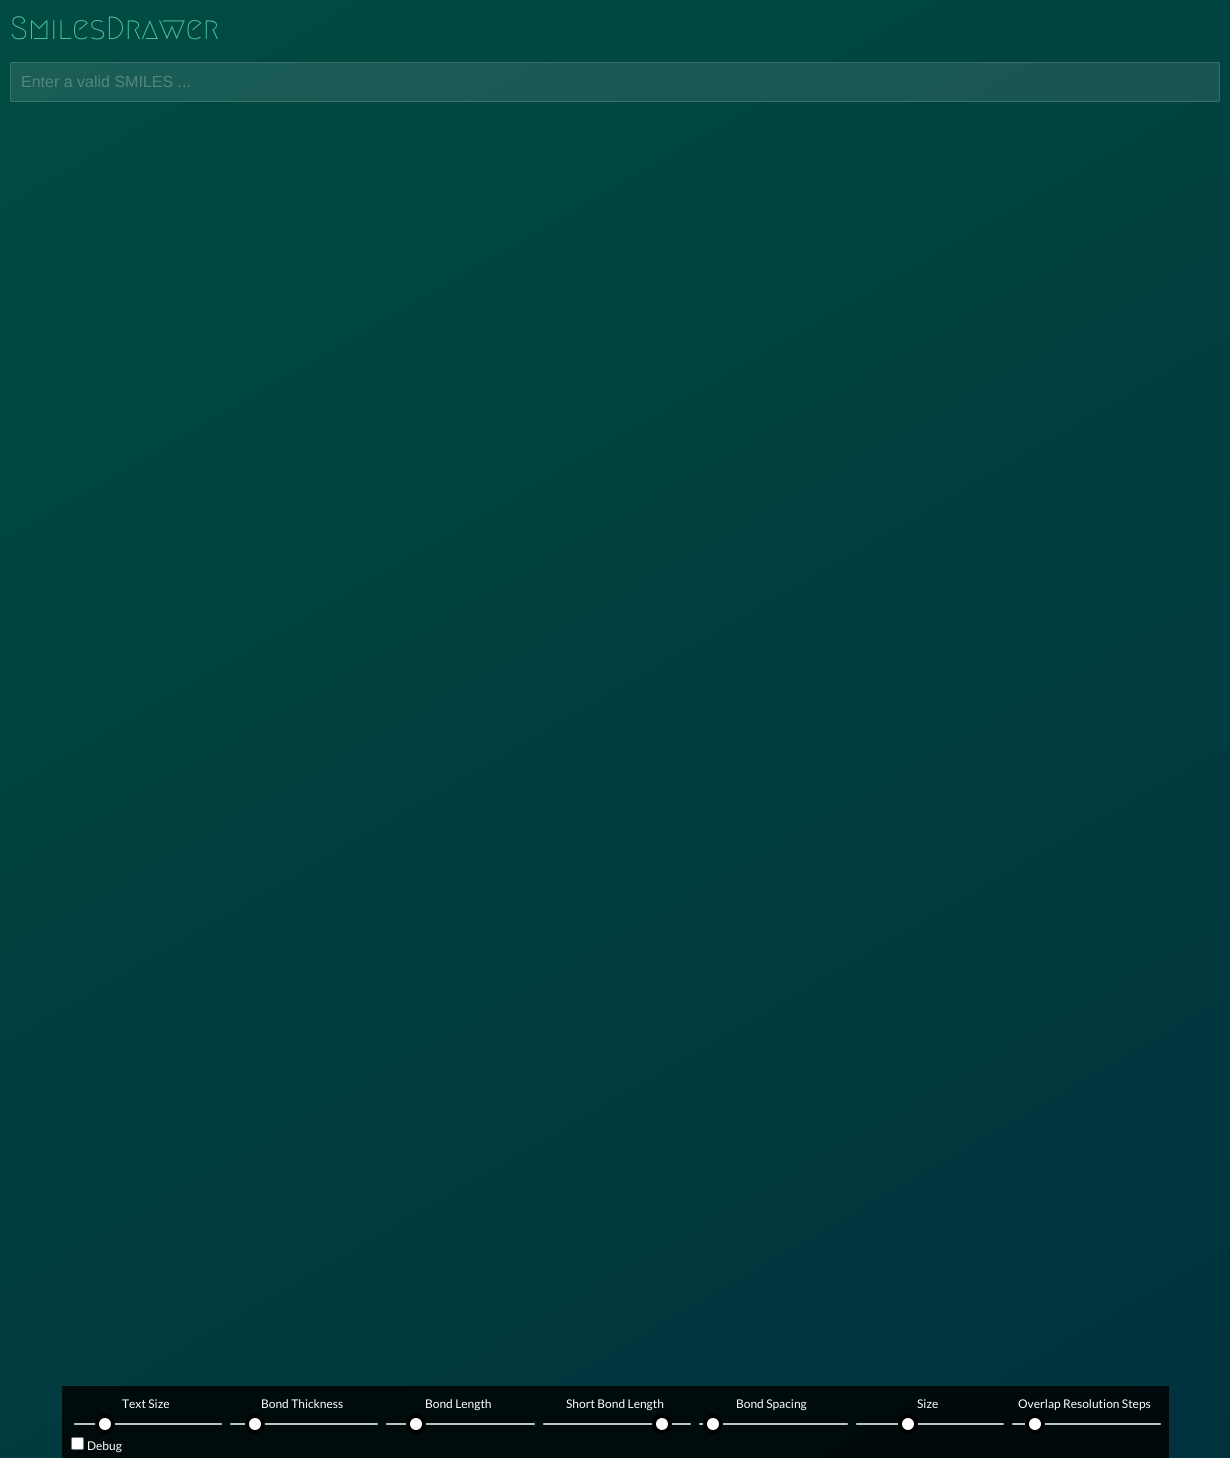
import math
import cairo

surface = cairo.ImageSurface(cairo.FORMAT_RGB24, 1230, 1458)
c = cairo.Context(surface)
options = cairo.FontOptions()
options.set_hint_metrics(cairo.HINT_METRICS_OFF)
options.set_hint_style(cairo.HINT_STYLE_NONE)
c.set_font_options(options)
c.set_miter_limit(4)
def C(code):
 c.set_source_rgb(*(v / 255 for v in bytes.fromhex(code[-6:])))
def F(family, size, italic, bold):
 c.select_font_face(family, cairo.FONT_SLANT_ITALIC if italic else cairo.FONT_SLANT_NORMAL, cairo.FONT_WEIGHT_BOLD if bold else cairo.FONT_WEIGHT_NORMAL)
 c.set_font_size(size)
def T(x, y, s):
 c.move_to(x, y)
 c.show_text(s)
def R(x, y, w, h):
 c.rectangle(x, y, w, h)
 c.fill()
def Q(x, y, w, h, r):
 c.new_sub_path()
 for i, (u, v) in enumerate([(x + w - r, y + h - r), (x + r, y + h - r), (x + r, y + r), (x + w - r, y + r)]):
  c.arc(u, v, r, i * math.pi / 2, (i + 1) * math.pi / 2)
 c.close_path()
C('ffffff')
c.paint()
gradient = cairo.LinearGradient(1084,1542,146,-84)
gradient.add_color_stop_rgba(0,0,0.196,0.239,1)
gradient.add_color_stop_rgba(1,0,0.298,0.259,1)
c.set_source(gradient)
R(0,0,1230,1458)
gradient = cairo.LinearGradient(1084,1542,146,-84)
gradient.add_color_stop_rgba(0,0,0.039,0.047,1)
gradient.add_color_stop_rgba(1,0,0.059,0.051,1)
c.set_source(gradient)
R(62,1386,1107,72)
F('Megrim Medium',32,0,0)
C('50c5a9')
T(10,39,'SmilesDrawer')
c.set_source_rgba(1,1,1,0.1)
Q(10,62,1210,40,2)
c.fill()
Q(10.5,62.5,1209,39,1.5)
c.set_source_rgba(1,1,1,0.15)
c.set_line_width(1)
c.stroke()
F('Liberation Sans',16,0,0)
C('53857f')
T(21,87,'Enter a valid SMILES ...')
F('Lato',12,0,0)
C('ffffff')
T(122,1408,'Text Size')
C('bfc2c2')
Q(74,1423,148,2,1)
c.fill()
C('ffffff')
c.arc(105,1424,8,0,2 * math.pi)
c.fill_preserve()
C('000000')
c.set_line_width(4)
c.stroke()
C('ffffff')
T(261,1408,'Bond Thickness')
C('bfc2c2')
Q(230,1423,148,2,1)
c.fill()
C('ffffff')
c.arc(255,1424,8,0,2 * math.pi)
c.fill_preserve()
C('000000')
c.stroke()
C('ffffff')
T(425,1408,'Bond Length')
C('bfc2c2')
Q(386,1423,149,2,1)
c.fill()
C('ffffff')
c.arc(416,1424,8,0,2 * math.pi)
c.fill_preserve()
C('000000')
c.stroke()
C('ffffff')
T(566,1408,'Short Bond Length')
C('bfc2c2')
Q(543,1423,148,2,1)
c.fill()
C('ffffff')
c.arc(662,1424,8,0,2 * math.pi)
c.fill_preserve()
C('000000')
c.stroke()
C('ffffff')
T(736,1408,'Bond Spacing')
C('bfc2c2')
Q(699,1423,149,2,1)
c.fill()
C('ffffff')
c.arc(713,1424,8,0,2 * math.pi)
c.fill_preserve()
C('000000')
c.stroke()
C('ffffff')
T(917,1408,'Size')
C('bfc2c2')
Q(856,1423,148,2,1)
c.fill()
C('ffffff')
c.arc(908,1424,8,0,2 * math.pi)
c.fill_preserve()
C('000000')
c.stroke()
C('ffffff')
T(1018,1408,'Overlap Resolution Steps')
C('bfc2c2')
Q(1012,1423,149,2,1)
c.fill()
C('ffffff')
c.arc(1035,1424,8,0,2 * math.pi)
c.fill_preserve()
C('000000')
c.stroke()
C('ffffff')
Q(71.5,1437.5,12,12,1.5)
c.fill_preserve()
C('767676')
c.set_line_width(1)
c.stroke()
C('ffffff')
T(87,1450,'Debug')
surface.write_to_png('o.png')
